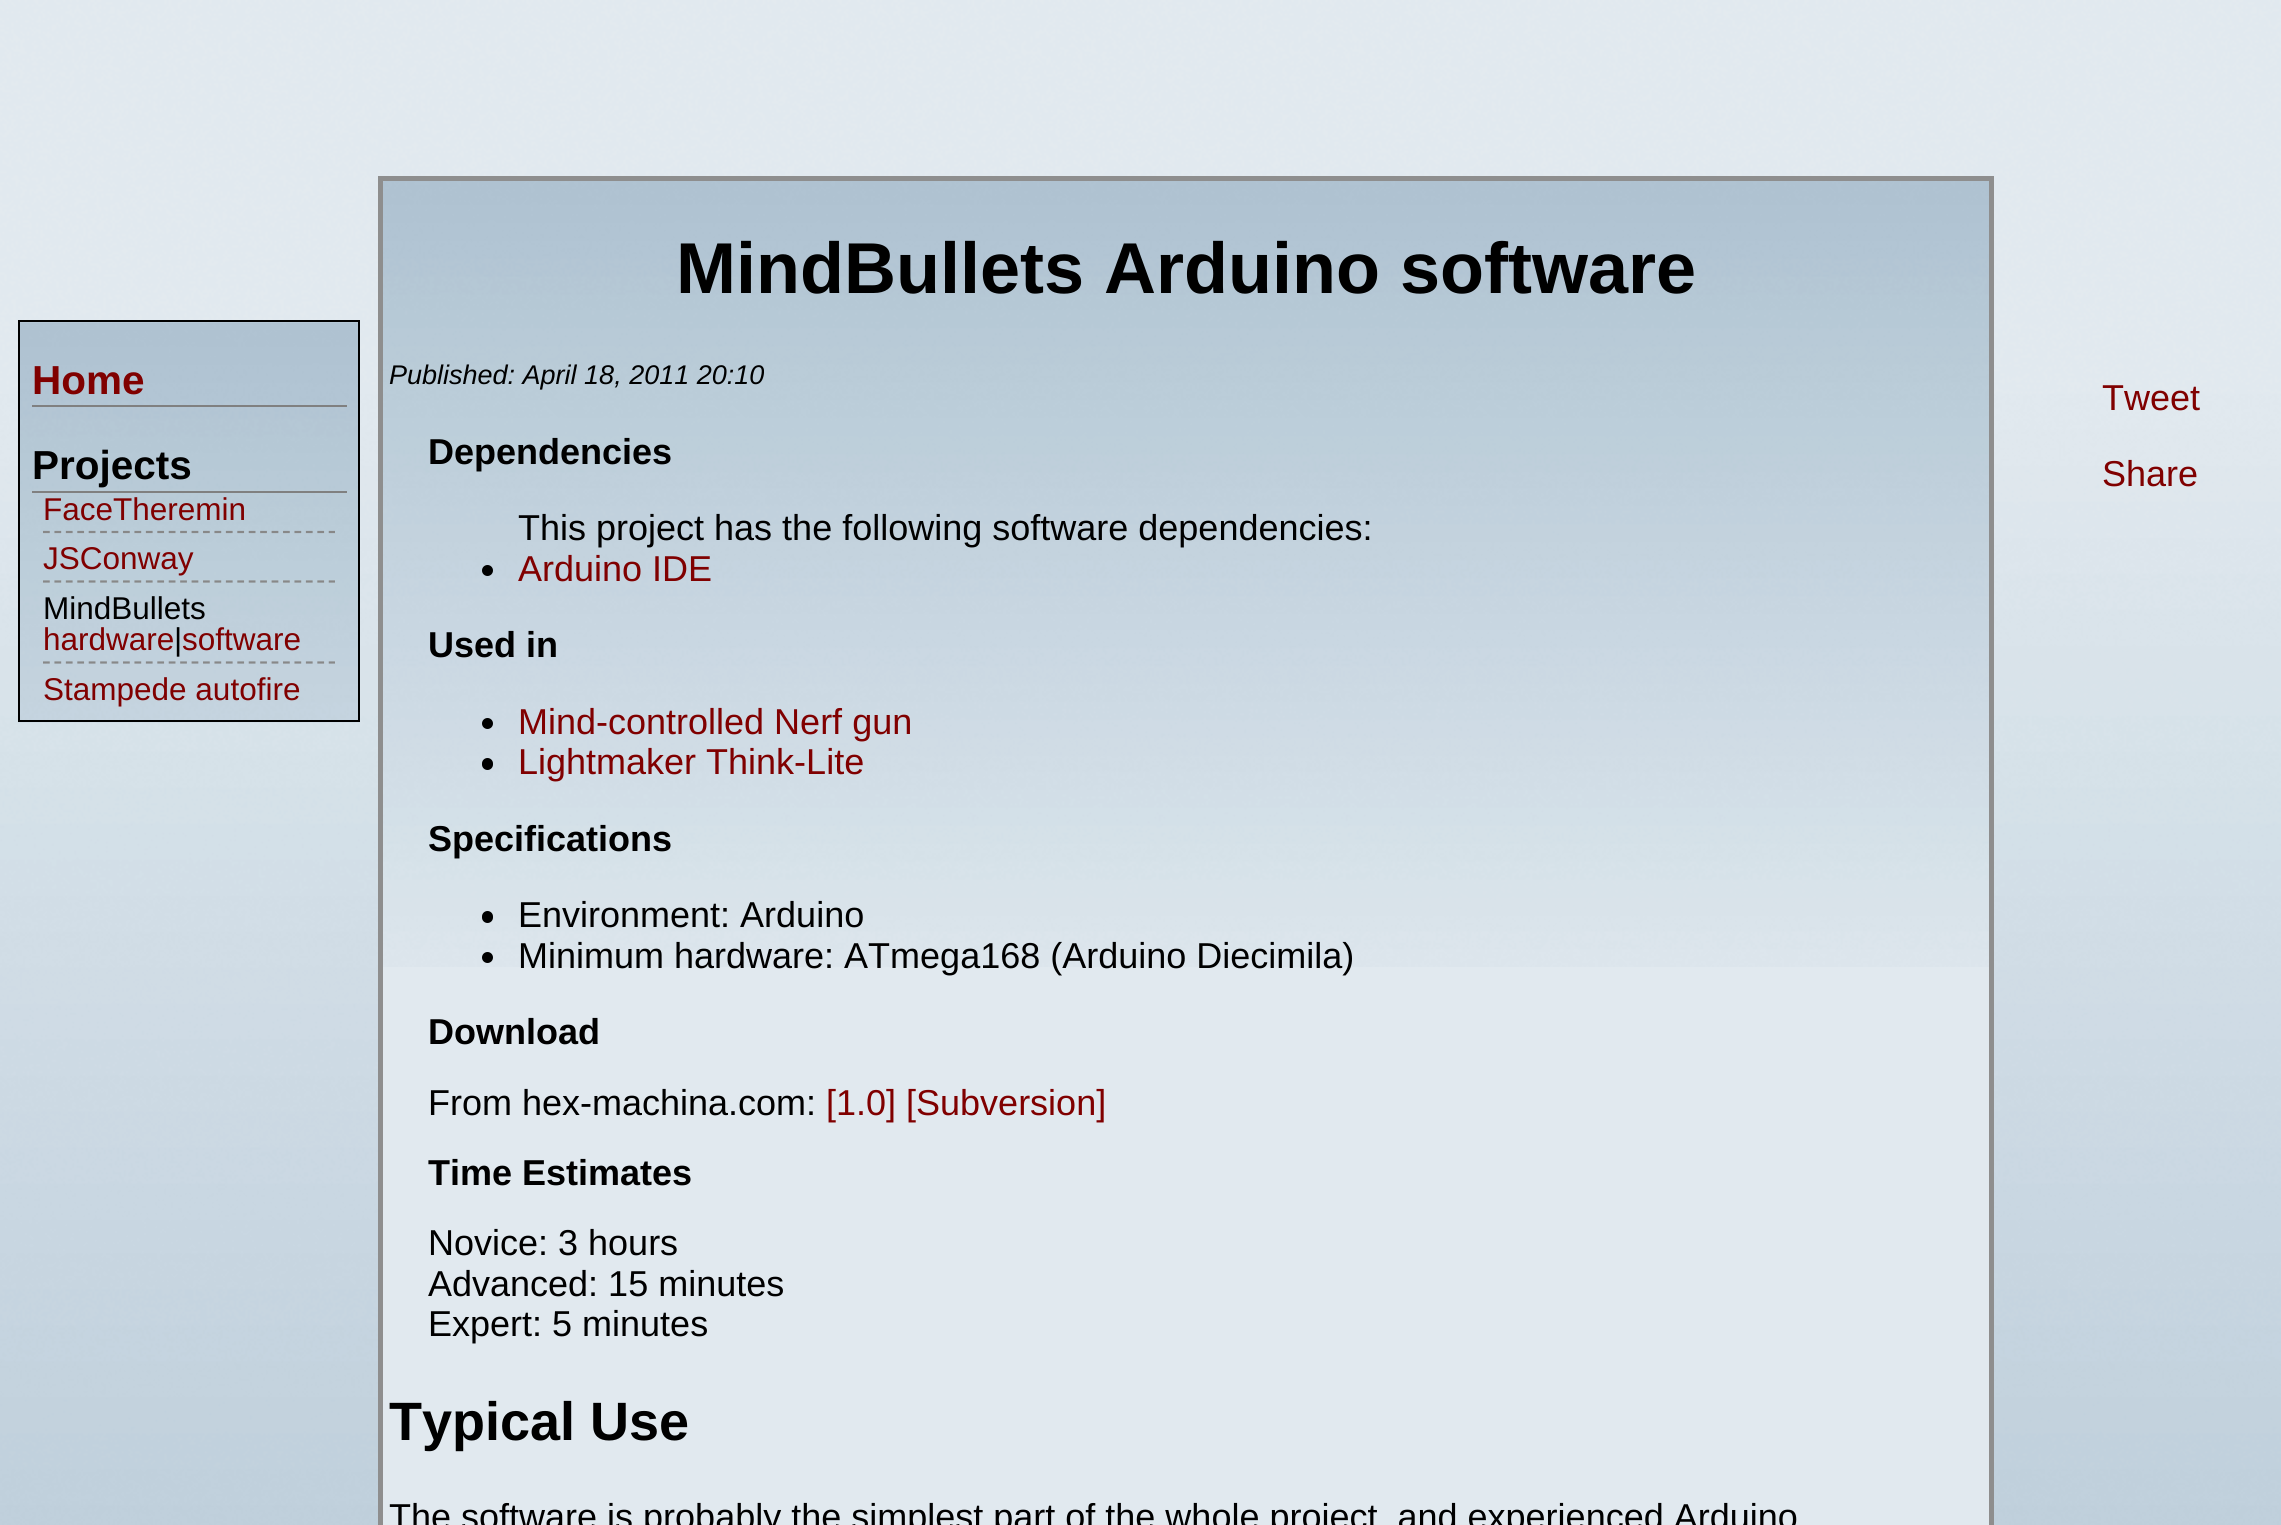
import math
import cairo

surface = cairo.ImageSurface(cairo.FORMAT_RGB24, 2281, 1525)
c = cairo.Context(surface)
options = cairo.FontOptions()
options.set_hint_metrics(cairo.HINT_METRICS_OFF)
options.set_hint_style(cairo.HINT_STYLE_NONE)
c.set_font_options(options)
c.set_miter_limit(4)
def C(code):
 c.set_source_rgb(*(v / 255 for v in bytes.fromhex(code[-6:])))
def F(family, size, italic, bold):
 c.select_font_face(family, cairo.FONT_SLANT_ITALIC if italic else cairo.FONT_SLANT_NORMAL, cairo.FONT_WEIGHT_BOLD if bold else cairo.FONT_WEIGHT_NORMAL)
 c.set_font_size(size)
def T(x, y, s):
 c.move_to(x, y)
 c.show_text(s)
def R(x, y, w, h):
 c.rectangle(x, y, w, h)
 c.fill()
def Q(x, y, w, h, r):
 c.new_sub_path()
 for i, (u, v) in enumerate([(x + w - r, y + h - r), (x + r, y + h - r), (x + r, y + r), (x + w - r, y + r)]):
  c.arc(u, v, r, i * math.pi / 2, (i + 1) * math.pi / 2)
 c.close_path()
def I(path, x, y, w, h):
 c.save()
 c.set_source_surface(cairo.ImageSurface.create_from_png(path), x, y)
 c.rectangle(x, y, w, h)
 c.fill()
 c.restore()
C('ffffff')
c.paint()
I('1.png',0,0,2281,1525)
I('2.png',18,322,342,401)
c.rectangle(19,321,340,400)
C('000000')
c.stroke()
C('808080')
R(32,405,315,2)
F('Liberation Sans',40.5,0,1)
C('800000')
T(32,394,'Home')
C('808080')
R(32,491,315,2)
C('000000')
T(32,479,'Projects')
c.new_path()
c.move_to(43,532)
c.line_to(335,532)
C('888888')
c.set_line_width(2.2)
c.set_dash([6.75,4.68])
c.stroke()
F('Liberation Sans',31.5,0,0)
C('800000')
T(43,520,'FaceTheremin')
c.new_path()
c.move_to(43,581.5)
c.line_to(335,581.5)
C('888888')
c.stroke()
C('800000')
T(43,569,'JSConway')
c.new_path()
c.move_to(43,662.5)
c.line_to(335,662.5)
C('888888')
c.stroke()
C('000000')
T(43,619,'MindBullets')
C('800000')
T(43,650,'hardware')
C('000000')
T(174,650,'|')
C('800000')
T(182,650,'software')
T(43,700,'Stampede autofire')
C('e1e9ef')
R(383,967,1606,558)
I('3.png',383,181,1606,786)
c.rectangle(380.5,178.5,1611,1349)
C('8e8e8e')
c.set_line_width(5)
c.set_dash([])
c.stroke()
F('Liberation Sans',72,0,1)
C('000000')
T(676,293,'MindBullets Arduino software')
F('Liberation Sans',27,1,0)
T(389,384,'Published: April 18, 2011 20:10')
F('Liberation Sans',36,0,1)
T(428,464,'Dependencies')
F('Liberation Sans',36,0,0)
T(518,540,'This project has the following software dependencies:')
c.new_path()
c.arc(487.5,570.5,5.5,0,2 * math.pi)
c.fill()
C('800000')
T(518,581,'Arduino IDE')
F('Liberation Sans',36,0,1)
C('000000')
T(428,657,'Used in')
c.new_path()
c.arc(487.5,723.5,5.5,0,2 * math.pi)
c.fill()
F('Liberation Sans',36,0,0)
C('800000')
T(518,734,'Mind-controlled Nerf gun')
C('000000')
Q(482,758,11,12,5.5)
c.fill()
C('800000')
T(518,774,'Lightmaker Think-Lite')
F('Liberation Sans',36,0,1)
C('000000')
T(428,851,'Specifications')
Q(482,911,11,12,5.5)
c.fill()
F('Liberation Sans',36,0,0)
T(518,927,'Environment: Arduino')
c.new_path()
c.arc(487.5,957.5,5.5,0,2 * math.pi)
c.fill()
T(518,968,'Minimum hardware: ATmega168 (Arduino Diecimila)')
F('Liberation Sans',36,0,1)
T(428,1044,'Download')
F('Liberation Sans',36,0,0)
T(428,1115,'From hex-machina.com:')
C('800000')
T(826,1115,'[1.0] [Subversion]')
F('Liberation Sans',36,0,1)
C('000000')
T(428,1185,'Time Estimates')
F('Liberation Sans',36,0,0)
T(428,1255,'Novice: 3 hours')
T(428,1296,'Advanced: 15 minutes')
T(428,1336,'Expert: 5 minutes')
F('Liberation Sans',54,0,1)
T(389,1440,'Typical Use')
F('Liberation Sans',36,0,0)
T(389,1529,'The software is probably the simplest part of the whole project, and experienced Arduino')
C('800000')
T(2102,410,'Tweet')
T(2102,486,'Share')
surface.write_to_png('o.png')
